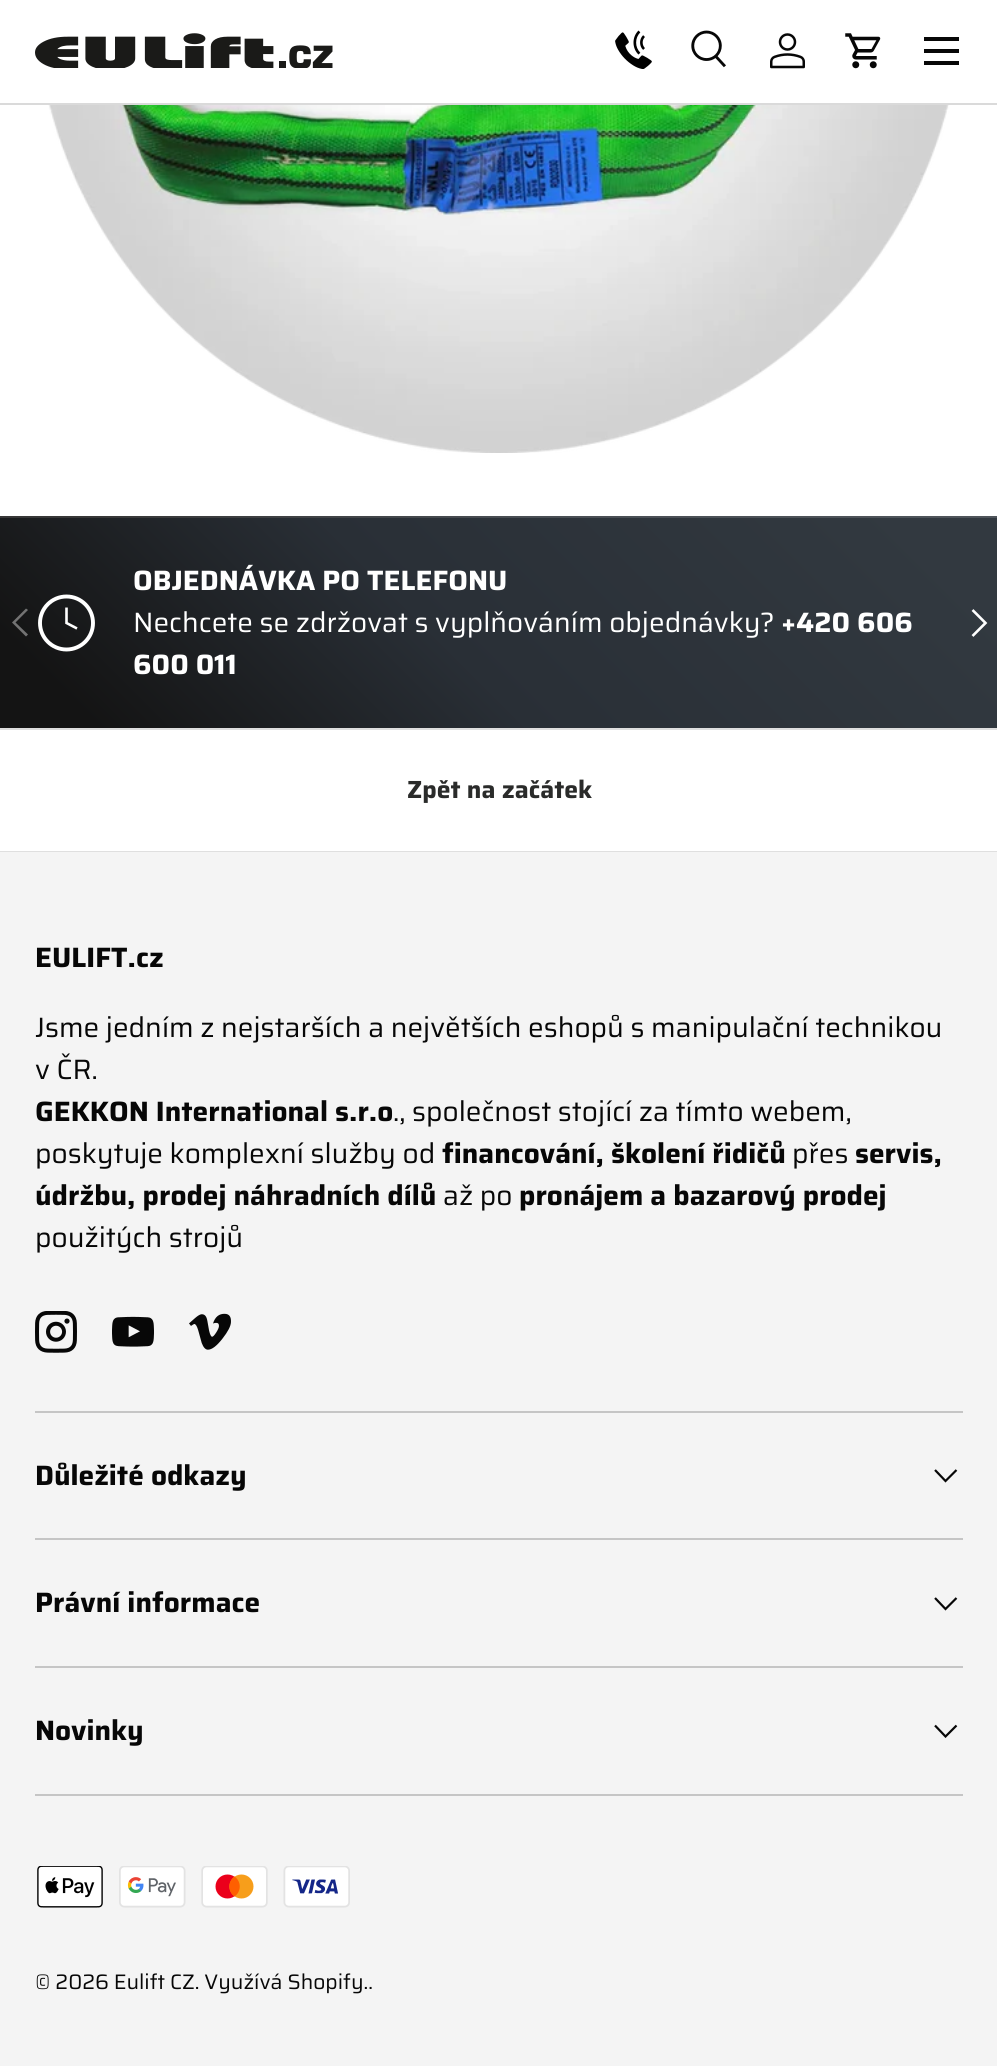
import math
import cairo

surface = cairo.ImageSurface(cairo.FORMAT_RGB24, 997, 2066)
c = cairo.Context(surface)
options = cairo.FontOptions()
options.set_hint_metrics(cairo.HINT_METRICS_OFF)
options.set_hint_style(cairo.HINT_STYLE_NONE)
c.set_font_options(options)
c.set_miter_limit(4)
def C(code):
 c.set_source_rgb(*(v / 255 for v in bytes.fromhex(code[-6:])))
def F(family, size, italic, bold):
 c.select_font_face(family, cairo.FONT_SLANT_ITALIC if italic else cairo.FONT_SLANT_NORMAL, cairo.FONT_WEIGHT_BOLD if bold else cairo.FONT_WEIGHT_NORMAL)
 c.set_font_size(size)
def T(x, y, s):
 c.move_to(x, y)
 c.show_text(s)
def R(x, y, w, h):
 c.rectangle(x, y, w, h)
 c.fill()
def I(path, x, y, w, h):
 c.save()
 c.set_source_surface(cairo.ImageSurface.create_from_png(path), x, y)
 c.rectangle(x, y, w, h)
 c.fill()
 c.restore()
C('ffffff')
c.paint()
C('dadada')
R(0,103,997,2)
I('1.png',35,33,298,35)
I('2.png',615,30,37,39)
I('3.png',691,30,35,38)
I('4.png',770,33,35,36)
I('5.png',845,33,36,36)
C('070707')
R(924,37,35,4)
R(924,61,35,4)
R(924,49,35,4)
I('6.png',48,105,902,348)
gradient = cairo.LinearGradient(801,111,197,715)
gradient.add_color_stop_rgba(.08,0.318,0.341,0.365,1)
gradient.add_color_stop_rgba(.56,0.286,0.306,0.329,1)
gradient.add_color_stop_rgba(.92,0.216,0.216,0.216,1)
c.set_source(gradient)
R(0,516,997,2)
gradient = cairo.LinearGradient(801,321,197,925)
gradient.add_color_stop_rgba(.08,0.196,0.224,0.251,1)
gradient.add_color_stop_rgba(.56,0.161,0.184,0.212,1)
gradient.add_color_stop_rgba(.92,0.078,0.078,0.078,1)
c.set_source(gradient)
R(0,518,997,210)
c.arc(66.5,623,26.5,0,2 * math.pi)
C('ffffff')
c.set_line_width(3.9)
c.stroke()
c.new_path()
c.move_to(66.5,607.5)
c.line_to(66.5,623)
c.line_to(77,628.5)
c.set_line_width(2.6)
c.stroke()
F('Saira',28,0,1)
T(133,590,'OBJEDNÁVKA PO TELEFONU')
F('Saira',28,0,0)
T(133,632,'Nechcete se zdržovat s vyplňováním objednávky?')
F('Saira',28,0,1)
T(781,632,'+420 606')
T(133,674,'600 011')
C('737373')
c.new_path()
c.move_to(12,622.5)
c.line_to(26,608.5)
c.line_to(28,610)
c.line_to(15.5,622.5)
c.line_to(28,634.5)
c.line_to(26,636.5)
c.close_path()
c.fill()
c.new_path()
c.move_to(972.5,610)
c.line_to(985.5,623)
c.line_to(972.5,636)
C('ffffff')
c.stroke()
C('dfdfdf')
R(0,728,997,2)
R(0,851,997,1)
F('Saira',24.75,0,1)
C('2a2b2a')
T(407,798,'Zpět na začátek')
C('f4f4f4')
R(0,852,997,1214)
F('Saira',28,0,1)
C('070707')
T(35,967,'EULIFT.cz')
F('Saira',28,0,0)
T(35,1037,'Jsme jedním z nejstarších a největších eshopů s manipulační technikou')
T(35,1079,'v ČR.')
F('Saira',28,0,1)
T(35,1121,'GEKKON International s.r.o')
F('Saira',28,0,0)
T(393,1121,'., společnost stojící za tímto webem,')
T(35,1163,'poskytuje komplexní služby od')
F('Saira',28,0,1)
T(442,1163,'financování, školení řidičů')
F('Saira',28,0,0)
T(792,1163,'přes')
F('Saira',28,0,1)
T(855,1163,'servis,')
T(35,1205,'údržbu, prodej náhradních dílů')
F('Saira',28,0,0)
T(443,1205,'až po')
F('Saira',28,0,1)
T(519,1205,'pronájem a bazarový prodej')
F('Saira',28,0,0)
T(35,1247,'použitých strojů')
I('7.png',35,1311,42,42)
I('8.png',112,1316,42,31)
I('9.png',189,1313,42,37)
C('c5c5c5')
R(35,1411,928,2)
R(35,1538,928,2)
F('Saira',28,0,1)
C('070707')
T(35,1485,'Důležité odkazy')
c.new_path()
c.move_to(956.5,1470)
c.line_to(945.5,1481)
c.line_to(935,1470)
c.set_line_width(2.2)
c.stroke()
C('c5c5c5')
R(35,1666,928,2)
C('070707')
T(35,1612,'Právní informace')
c.new_path()
c.move_to(956.5,1598)
c.line_to(945.5,1609)
c.line_to(935,1598)
c.stroke()
C('c5c5c5')
R(35,1794,928,2)
C('070707')
T(35,1740,'Novinky')
c.new_path()
c.move_to(956.5,1725.5)
c.line_to(945.5,1736.5)
c.line_to(935,1725.5)
c.stroke()
I('10.png',37,1866,66,42)
I('11.png',119,1866,67,42)
I('12.png',201,1866,67,42)
I('13.png',283,1866,67,42)
F('Saira',21,0,0)
T(35,1989,'© 2026 Eulift CZ. Využívá Shopify..')
surface.write_to_png('o.png')
